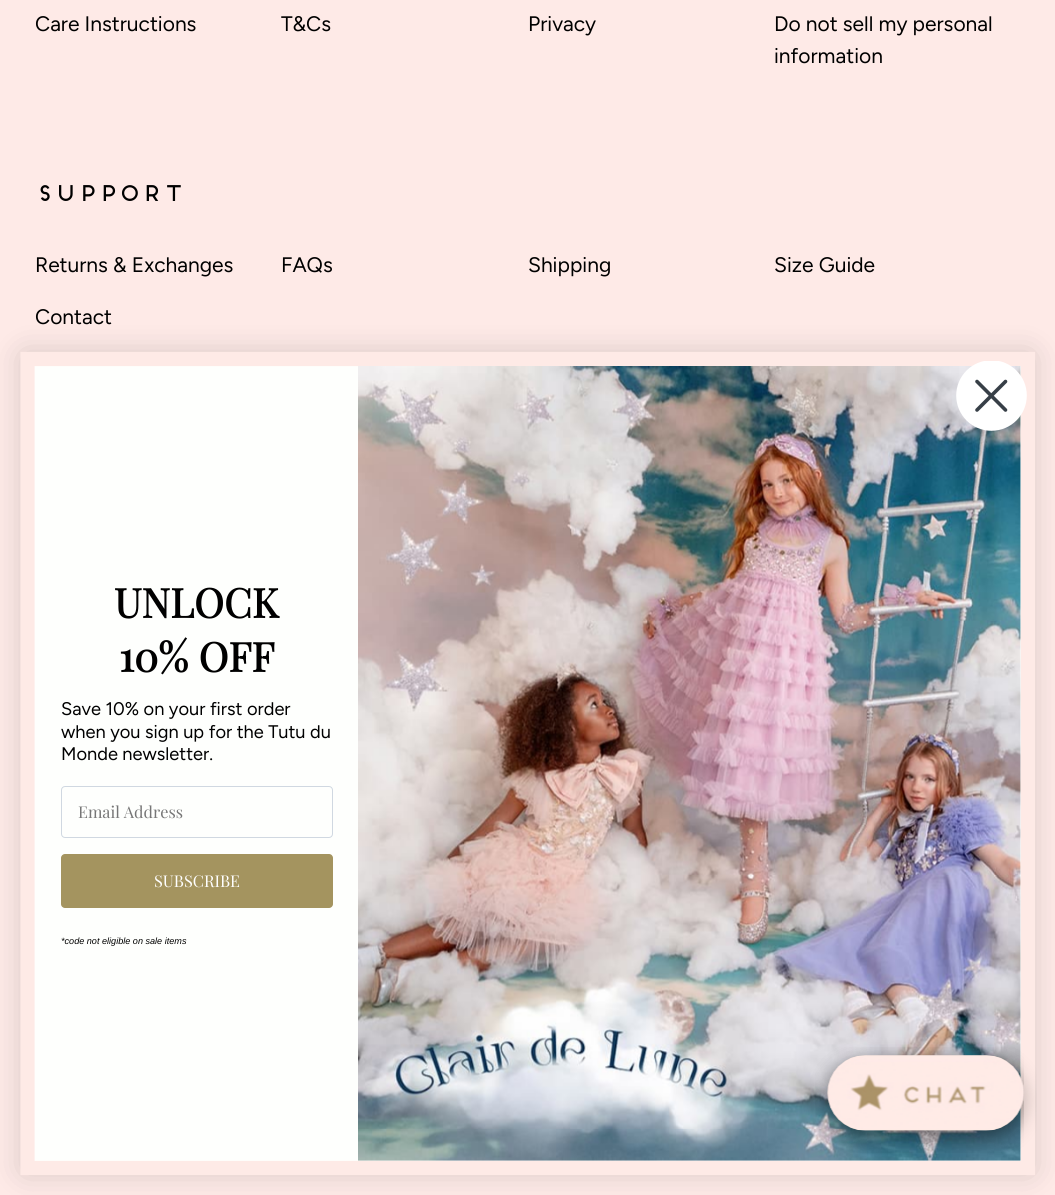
import math
import cairo

surface = cairo.ImageSurface(cairo.FORMAT_RGB24, 1055, 1195)
c = cairo.Context(surface)
options = cairo.FontOptions()
options.set_hint_metrics(cairo.HINT_METRICS_OFF)
options.set_hint_style(cairo.HINT_STYLE_NONE)
c.set_font_options(options)
c.set_miter_limit(4)
def C(code):
 c.set_source_rgb(*(v / 255 for v in bytes.fromhex(code[-6:])))
def F(family, size, italic, bold):
 c.select_font_face(family, cairo.FONT_SLANT_ITALIC if italic else cairo.FONT_SLANT_NORMAL, cairo.FONT_WEIGHT_BOLD if bold else cairo.FONT_WEIGHT_NORMAL)
 c.set_font_size(size)
def T(x, y, s):
 c.move_to(x, y)
 c.show_text(s)
def R(x, y, w, h):
 c.rectangle(x, y, w, h)
 c.fill()
def Q(x, y, w, h, r):
 c.new_sub_path()
 for i, (u, v) in enumerate([(x + w - r, y + h - r), (x + r, y + h - r), (x + r, y + r), (x + w - r, y + r)]):
  c.arc(u, v, r, i * math.pi / 2, (i + 1) * math.pi / 2)
 c.close_path()
def S(x, y, w, h, r, blur, alpha):
 c.push_group_with_content(cairo.CONTENT_ALPHA)
 c.set_operator(cairo.OPERATOR_SOURCE)
 for i in range(15, -16, -2):
  e = blur * i / 6
  if min(w, h) + 2 * e > 0:
   c.set_source_rgba(0, 0, 0, alpha * math.erfc((i - 1) / 8.5) / 2)
   Q(x - e, y - e, w + 2 * e, h + 2 * e, max(0, min(r + e + blur * .6, min(w, h) / 2 + e)))
   c.fill()
 c.mask(c.pop_group())
def I(path, x, y, w, h):
 c.save()
 c.set_source_surface(cairo.ImageSurface.create_from_png(path), x, y)
 c.rectangle(x, y, w, h)
 c.fill()
 c.restore()
C('feeae7')
c.paint()
F('Figtree',21,0,0)
C('000000')
T(35,31,'Care Instructions')
T(281,31,'T&Cs')
T(528,31,'Privacy')
T(774,31,'Do not sell my personal')
T(774,63,'information')
F('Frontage',22.75,0,0)
T(35,201,'SUPPORT')
F('Figtree',21,0,0)
T(35,272,'Returns & Exchanges')
T(281,272,'FAQs')
T(528,272,'Shipping')
T(774,272,'Size Guide')
T(35,324,'Contact')
C('000000')
S(21,352,1013,822,4,15,.15)
C('fefffd')
R(34,366,987,795)
c.new_path()
c.move_to(27.5,359)
c.line_to(1028,359)
c.line_to(1028,1168)
c.line_to(27.5,1168)
c.close_path()
C('feeae6')
c.set_line_width(14.2)
c.stroke()
I('1.png',358,366,666,795)
C('ffffff')
c.arc(991.5,395.5,33.5,0,2 * math.pi)
c.fill()
c.save()
c.rectangle(956,361,71,70)
c.clip()
c.arc(991.5,395.5,33.5,0,2 * math.pi)
c.set_line_width(3.6)
c.stroke()
c.restore()
c.new_path()
c.move_to(977,381.5)
c.line_to(1005.5,410)
c.move_to(977,410)
c.line_to(1005.5,381.5)
c.close_path()
C('373f47')
c.set_line_width(3.6)
c.set_line_cap(cairo.LINE_CAP_ROUND)
c.set_line_join(cairo.LINE_JOIN_ROUND)
c.stroke()
F('Playfair Display',40.5,0,1)
C('000000')
T(114,618,'UNLOCK')
T(119,672,'10% OFF')
F('Figtree',18.25,0,0)
T(61,715,'Save 10% on your first order')
T(61,738,'when you sign up for the Tutu du')
T(61,760,'Monde newsletter.')
Q(61.5,786.5,271,51,3.5)
C('d0d8e1')
c.set_line_width(1)
c.set_line_cap(cairo.LINE_CAP_BUTT)
c.set_line_join(cairo.LINE_JOIN_MITER)
c.stroke()
F('Playfair Display',16.25,0,0)
C('767676')
T(78,818,'Email Address')
C('a4945f')
Q(61,854,272,54,4)
c.fill()
C('ffffff')
T(154,887,'SUBSCRIBE')
F('Liberation Sans',9.1,1,0)
C('000000')
T(61,944,'*code not eligible on sale items')
I('2.png',815,1047,222,106)
surface.write_to_png('o.png')
